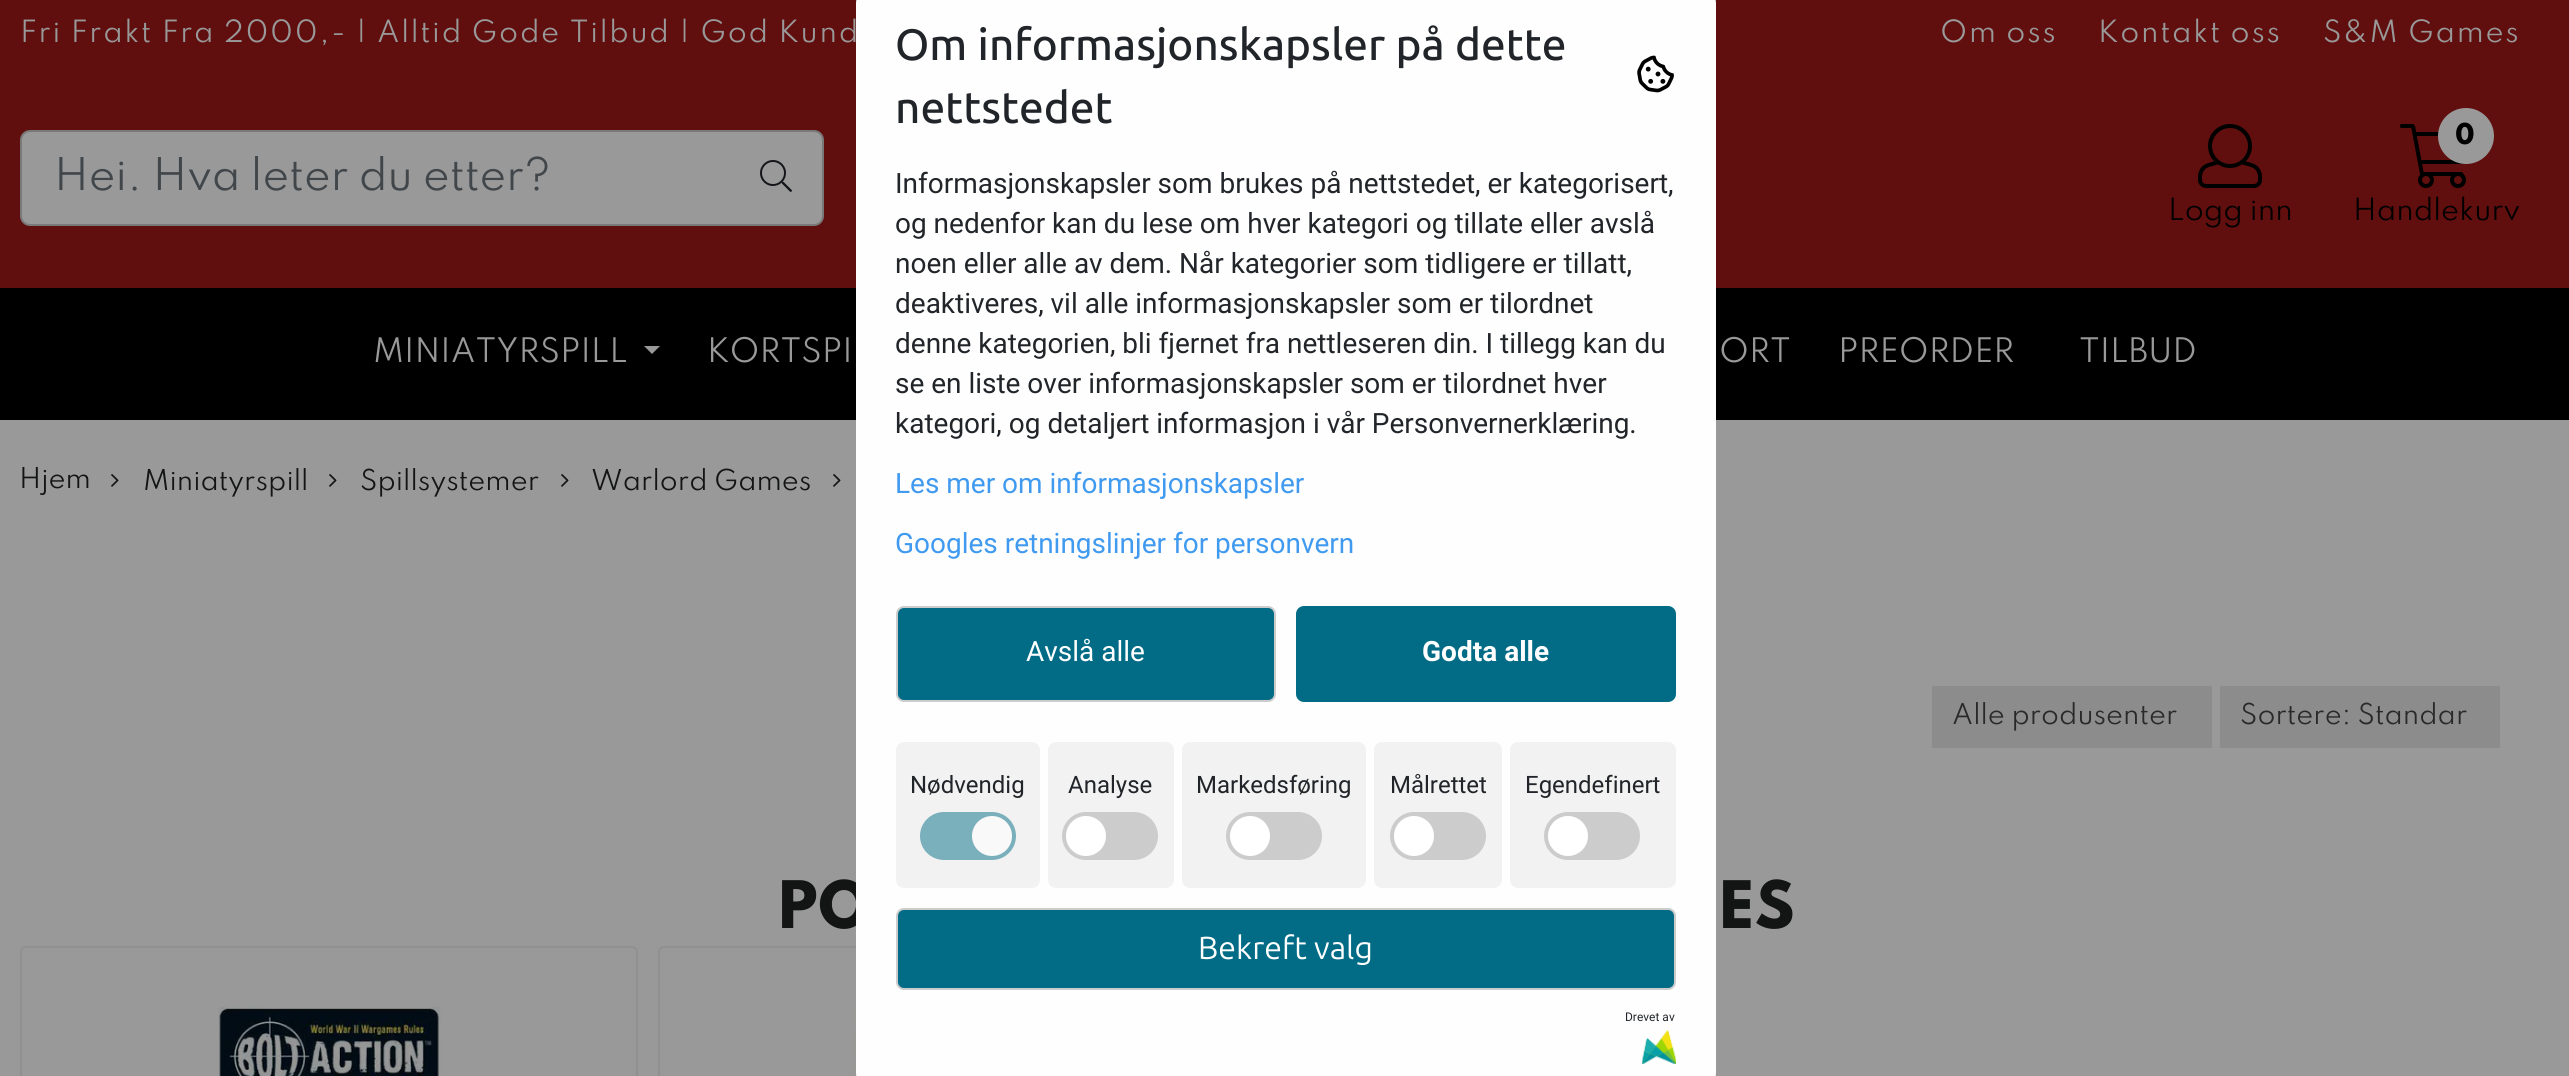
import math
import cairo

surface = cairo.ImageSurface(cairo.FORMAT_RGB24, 2569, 1076)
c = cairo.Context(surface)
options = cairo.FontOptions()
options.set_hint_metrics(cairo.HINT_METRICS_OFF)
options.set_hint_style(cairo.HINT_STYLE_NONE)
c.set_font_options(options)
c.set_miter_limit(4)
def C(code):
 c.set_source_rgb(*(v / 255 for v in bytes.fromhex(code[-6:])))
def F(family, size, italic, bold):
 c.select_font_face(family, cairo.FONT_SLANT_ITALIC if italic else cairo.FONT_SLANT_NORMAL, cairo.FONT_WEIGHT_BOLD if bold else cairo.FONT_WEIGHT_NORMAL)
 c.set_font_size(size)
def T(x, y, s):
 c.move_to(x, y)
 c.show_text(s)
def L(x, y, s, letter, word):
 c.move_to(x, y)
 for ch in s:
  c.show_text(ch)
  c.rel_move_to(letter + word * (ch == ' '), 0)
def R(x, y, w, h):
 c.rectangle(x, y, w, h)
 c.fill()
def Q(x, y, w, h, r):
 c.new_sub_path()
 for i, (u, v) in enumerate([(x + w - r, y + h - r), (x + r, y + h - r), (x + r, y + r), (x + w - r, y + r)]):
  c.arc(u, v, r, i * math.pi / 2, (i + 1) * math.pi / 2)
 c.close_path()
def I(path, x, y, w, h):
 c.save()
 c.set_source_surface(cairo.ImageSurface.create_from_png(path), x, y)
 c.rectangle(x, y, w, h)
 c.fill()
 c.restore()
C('999999')
c.paint()
C('610e0e')
R(0,0,2569,288)
F('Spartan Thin',27.2,0,0)
C('999999')
L(20,42,'Fri Frakt Fra 2000,- | Alltid Gode Tilbud | God Kund',1.7,0)
L(1940,42,'Om oss',1.7,0)
L(2098,42,'Kontakt oss',1.7,0)
L(2323,42,'S&M Games',1.7,0)
Q(21,131,802,94,9)
c.fill_preserve()
C('797979')
c.stroke()
c.save()
c.rectangle(54,156,736,46)
c.clip()
F('Spartan Thin',40,0,0)
C('41464b')
T(54,190,'Hei. Hva leter du etter?')
c.restore()
I('1.png',760,160,32,32)
I('2.png',2198,124,64,64)
C('000000')
T(2168,220,'Logg inn')
I('3.png',2400,124,66,64)
C('999999')
c.arc(2466,136,26,0,2 * math.pi)
c.fill_preserve()
c.set_line_width(4)
c.stroke()
F('Spartan Thin ExtraBold',25.5,0,0)
C('000000')
T(2455,144,'0')
F('Spartan Thin',27.2,0,0)
T(2353,220,'Handlekurv')
R(0,288,2569,132)
F('Spartan Thin',30,0,0)
C('999999')
T(373,362,'MINIATYRSPILL')
c.new_path()
c.move_to(644,346)
c.line_to(660,346)
c.line_to(652,354)
c.close_path()
c.fill()
T(707,362,'KORTSPI')
T(1719,362,'ORT')
T(1838,362,'PREORDER')
T(2079,362,'TILBUD')
F('Spartan Thin ExtraBold',58,0,0)
C('131414')
T(776,928,'PO')
Q(659,947,616,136,5)
C('909090')
c.set_line_width(2)
c.stroke()
I('8.png',853,1006,4,70)
C('fefefe')
c.new_path()
c.move_to(865,-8)
c.line_to(1707,-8)
c.curve_to(1712,-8,1716,-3,1716,3)
c.line_to(1716,1073)
c.curve_to(1716,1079,1712,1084,1707,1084)
c.line_to(865,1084)
c.curve_to(860,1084,856,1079,856,1073)
c.line_to(856,3)
c.curve_to(856,-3,860,-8,865,-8)
c.close_path()
c.fill()
F('Ubuntu Medium',44,0,0)
C('212529')
T(895,60,'Om informasjonskapsler på dette')
T(895,123,'nettstedet')
I('4.png',1637,55,37,38)
F('Roboto',28,0,0)
T(895,193,'Informasjonskapsler som brukes på nettstedet, er kategorisert,')
T(895,233,'og nedenfor kan du lese om hver kategori og tillate eller avslå')
T(895,273,'noen eller alle av dem. Når kategorier som tidligere er tillatt,')
T(895,313,'deaktiveres, vil alle informasjonskapsler som er tilordnet')
T(895,353,'denne kategorien, bli fjernet fra nettleseren din. I tillegg kan du')
T(895,393,'se en liste over informasjonskapsler som er tilordnet hver')
T(895,433,'kategori, og detaljert informasjon i vår Personvernerklæring.')
C('409aef')
T(895,493,'Les mer om informasjonskapsler')
T(895,553,'Googles retningslinjer for personvern')
C('026b85')
Q(897,607,378,94,7)
c.fill_preserve()
C('cccccc')
c.stroke()
C('ffffff')
T(1026,661,'Avslå alle')
C('026b85')
Q(1296,606,380,96,8)
c.fill()
F('Roboto',28,0,1)
C('ffffff')
T(1422,661,'Godta alle')
C('f2f2f2')
Q(896,742,144,146,8)
c.fill()
F('Roboto',24,0,0)
C('212529')
T(910,793,'Nødvendig')
C('7aafbc')
Q(920,812,96,48,24)
c.fill()
C('f9f9f9')
c.arc(992,836,20,0,2 * math.pi)
c.fill()
C('f2f2f2')
Q(1048,742,126,146,8)
c.fill()
C('212529')
T(1068,793,'Analyse')
C('cccccc')
Q(1062,812,96,48,24)
c.fill()
C('ffffff')
c.arc(1086,836,20,0,2 * math.pi)
c.fill()
C('f2f2f2')
Q(1182,742,184,146,8)
c.fill()
C('212529')
T(1196,793,'Markedsføring')
C('cccccc')
Q(1226,812,96,48,24)
c.fill()
C('ffffff')
c.arc(1250,836,20,0,2 * math.pi)
c.fill()
C('f2f2f2')
Q(1374,742,128,146,8)
c.fill()
C('212529')
T(1390,793,'Målrettet')
C('cccccc')
Q(1390,812,96,48,24)
c.fill()
C('ffffff')
c.arc(1414,836,20,0,2 * math.pi)
c.fill()
C('f2f2f2')
Q(1510,742,166,146,8)
c.fill()
C('212529')
T(1525,793,'Egendefinert')
C('cccccc')
Q(1544,812,96,48,24)
c.fill()
C('ffffff')
c.arc(1568,836,20,0,2 * math.pi)
c.fill()
C('026b85')
Q(897,909,778,80,7)
c.fill_preserve()
C('cccccc')
c.stroke()
F('Ubuntu',32,0,0)
C('ffffff')
T(1198,959,'Bekreft valg')
F('Roboto',12,0,0)
C('212529')
T(1625,1021,'Drevet av')
I('5.png',1642,1030,34,34)
F('Spartan Thin',25.5,0,0)
C('131414')
T(19,488,'Hjem')
I('6.png',111,474,8,13)
T(143,490,'Miniatyrspill')
I('6.png',329,474,8,13)
T(360,490,'Spillsystemer')
I('6.png',561,474,8,13)
T(591,490,'Warlord Games')
I('6.png',833,474,8,13)
C('8c8c8c')
R(1932,686,280,62)
C('292929')
T(1952,724,'Alle produsenter')
C('8c8c8c')
R(2220,686,280,62)
C('292929')
T(2240,724,'Sortere: Standar')
F('Spartan Thin ExtraBold',58,0,0)
C('131414')
T(1717,928,'ES')
Q(21,947,616,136,5)
C('909090')
c.stroke()
I('7.png',218,1005,224,71)
surface.write_to_png('o.png')
